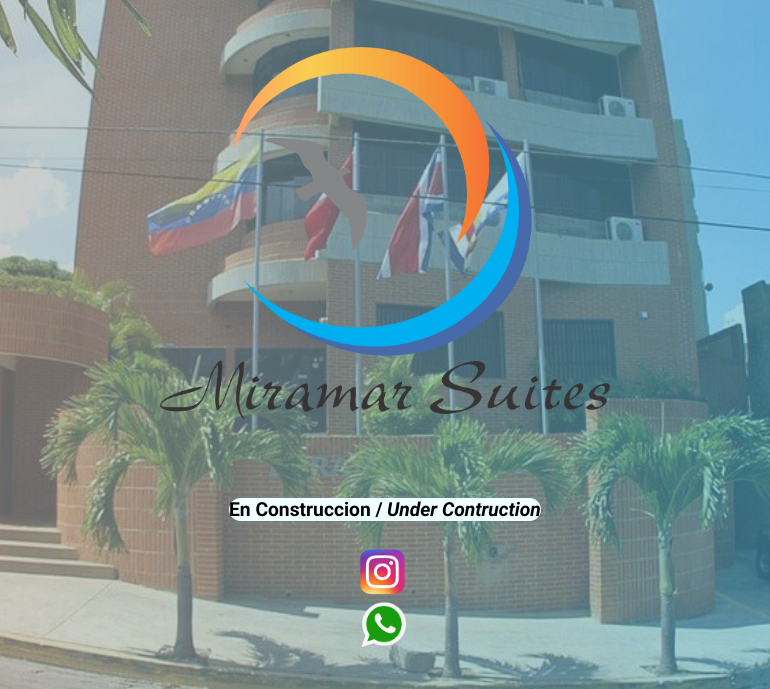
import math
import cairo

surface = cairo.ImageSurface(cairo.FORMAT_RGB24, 770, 689)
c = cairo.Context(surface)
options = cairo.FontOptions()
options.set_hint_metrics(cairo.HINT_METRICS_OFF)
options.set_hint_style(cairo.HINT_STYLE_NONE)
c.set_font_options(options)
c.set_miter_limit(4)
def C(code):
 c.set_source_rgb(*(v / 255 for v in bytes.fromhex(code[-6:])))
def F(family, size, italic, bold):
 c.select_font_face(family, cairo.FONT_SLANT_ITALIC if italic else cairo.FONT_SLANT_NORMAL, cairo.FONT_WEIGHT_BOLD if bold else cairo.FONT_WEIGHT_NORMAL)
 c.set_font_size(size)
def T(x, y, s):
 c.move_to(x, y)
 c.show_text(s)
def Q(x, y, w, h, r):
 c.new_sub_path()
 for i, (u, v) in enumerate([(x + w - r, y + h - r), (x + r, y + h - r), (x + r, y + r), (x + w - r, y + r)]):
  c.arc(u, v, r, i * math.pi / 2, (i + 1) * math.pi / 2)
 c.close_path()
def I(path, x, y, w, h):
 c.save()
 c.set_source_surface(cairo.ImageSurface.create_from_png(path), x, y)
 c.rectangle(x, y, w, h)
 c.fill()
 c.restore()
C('ffffff')
c.paint()
I('1.png',0,0,770,689)
I('2.png',160,47,450,372)
C('f0ffff')
Q(229,498,312,23,11.5)
c.fill()
F('Roboto',19.25,0,1)
C('000000')
T(229,516,'En Construccion /')
F('Roboto',19.25,1,1)
T(387,516,'Under Contruction')
I('3.png',359,549,46,46)
I('4.png',361,602,45,45)
surface.write_to_png('o.png')
